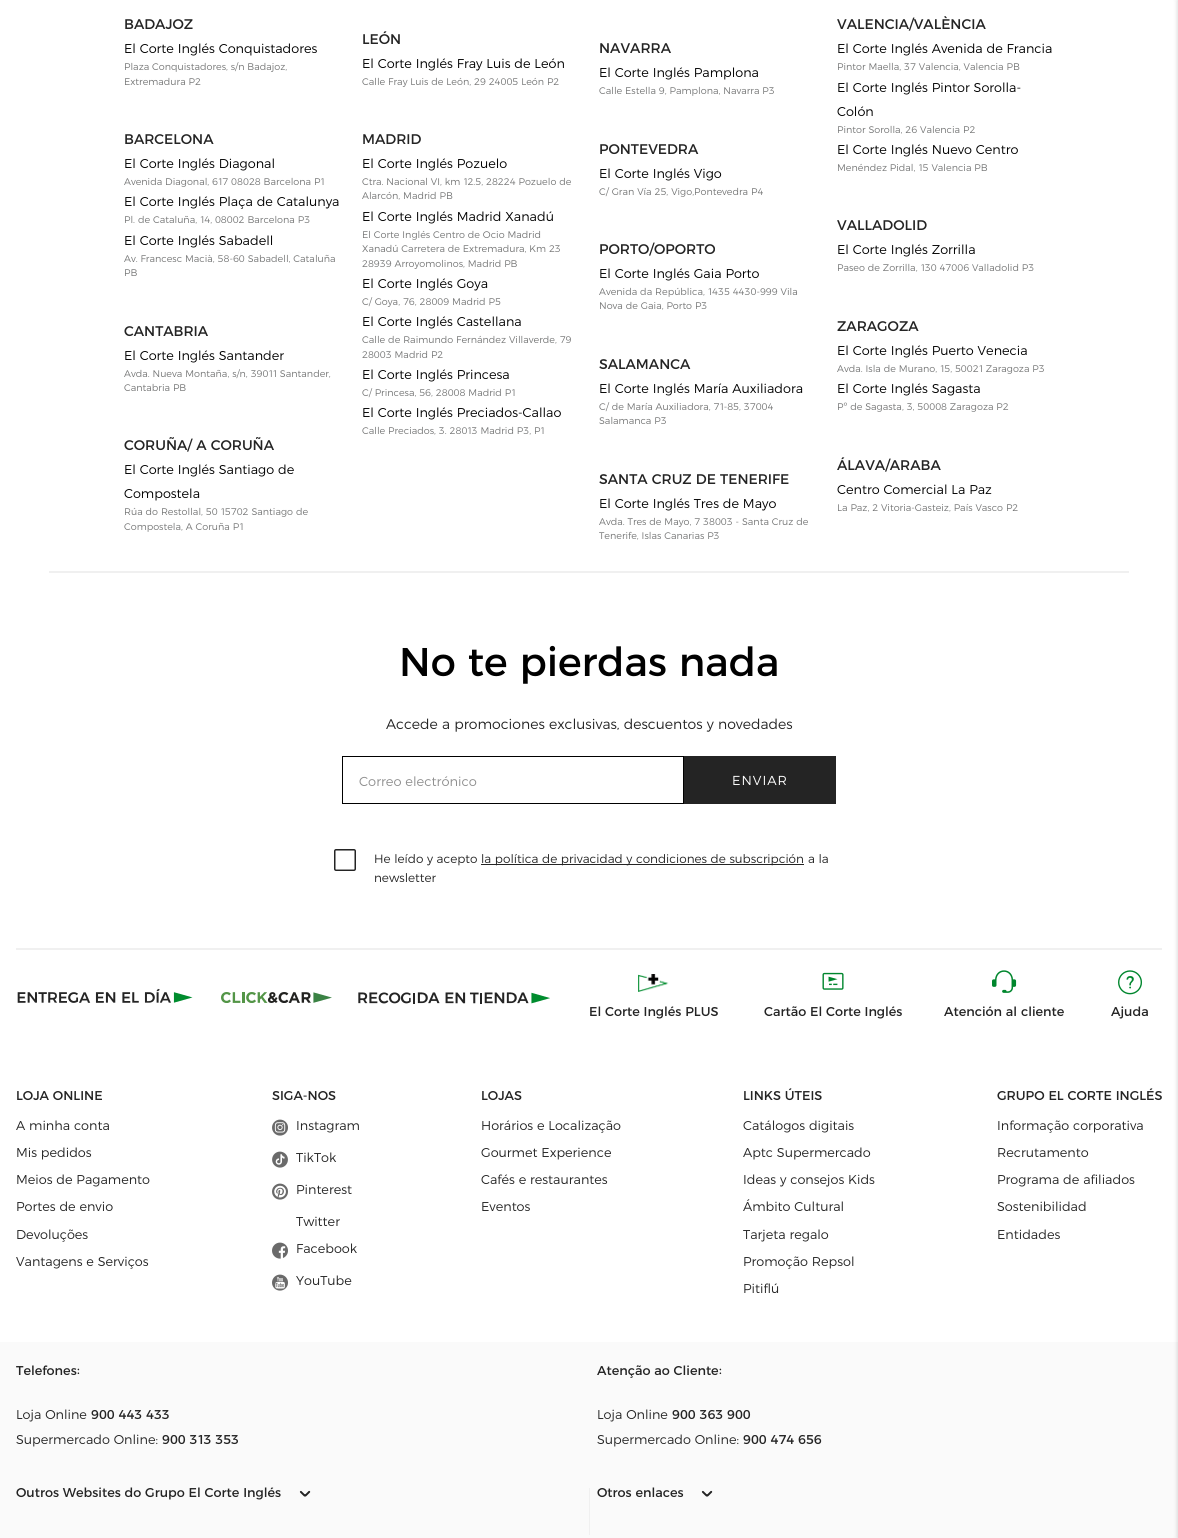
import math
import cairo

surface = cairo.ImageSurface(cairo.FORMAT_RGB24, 1178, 1538)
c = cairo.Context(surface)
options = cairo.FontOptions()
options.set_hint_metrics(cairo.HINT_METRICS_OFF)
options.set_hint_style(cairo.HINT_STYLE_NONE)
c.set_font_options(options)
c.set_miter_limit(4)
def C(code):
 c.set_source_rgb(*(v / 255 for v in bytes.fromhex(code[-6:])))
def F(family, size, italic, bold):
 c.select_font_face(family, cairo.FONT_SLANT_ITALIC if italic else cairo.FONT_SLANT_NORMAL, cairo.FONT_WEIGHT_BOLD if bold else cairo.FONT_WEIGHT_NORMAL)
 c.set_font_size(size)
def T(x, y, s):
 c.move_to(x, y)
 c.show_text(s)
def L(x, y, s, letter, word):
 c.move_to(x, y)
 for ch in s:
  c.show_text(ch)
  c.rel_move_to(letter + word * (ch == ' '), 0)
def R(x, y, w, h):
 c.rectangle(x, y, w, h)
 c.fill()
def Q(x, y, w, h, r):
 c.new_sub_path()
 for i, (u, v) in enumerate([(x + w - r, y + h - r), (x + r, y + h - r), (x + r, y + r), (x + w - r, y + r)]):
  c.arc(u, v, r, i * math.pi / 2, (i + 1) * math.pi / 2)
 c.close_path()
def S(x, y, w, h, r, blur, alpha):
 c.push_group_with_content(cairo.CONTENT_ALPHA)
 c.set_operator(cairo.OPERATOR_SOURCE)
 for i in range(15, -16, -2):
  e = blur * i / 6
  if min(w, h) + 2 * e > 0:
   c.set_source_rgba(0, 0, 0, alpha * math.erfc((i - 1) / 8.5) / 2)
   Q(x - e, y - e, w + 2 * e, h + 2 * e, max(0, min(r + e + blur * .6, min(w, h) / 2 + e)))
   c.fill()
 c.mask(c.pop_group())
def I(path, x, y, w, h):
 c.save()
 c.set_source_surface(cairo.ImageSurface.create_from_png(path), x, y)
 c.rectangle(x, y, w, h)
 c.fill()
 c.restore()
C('ffffff')
c.paint()
F('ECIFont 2',14,0,0)
C('242424')
T(124,29,'BADAJOZ')
F('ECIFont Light',12.8,0,0)
C('000000')
T(124,53,'El Corte Inglés Conquistadores')
F('ECIFont Light',9.6,0,0)
C('757676')
T(124,70,'Plaza Conquistadores, s/n Badajoz,')
T(124,85,'Extremadura P2')
F('ECIFont 2',14,0,0)
C('242424')
T(362,44,'LEÓN')
F('ECIFont Light',12.8,0,0)
C('000000')
T(362,68,'El Corte Inglés Fray Luis de León')
F('ECIFont Light',9.6,0,0)
C('757676')
T(362,85,'Calle Fray Luis de León, 29 24005 León P2')
F('ECIFont 2',14,0,0)
C('242424')
T(599,53,'NAVARRA')
F('ECIFont Light',12.8,0,0)
C('000000')
T(599,77,'El Corte Inglés Pamplona')
F('ECIFont Light',9.6,0,0)
C('757676')
T(599,94,'Calle Estella 9, Pamplona, Navarra P3')
F('ECIFont 2',14,0,0)
C('242424')
T(837,29,'VALENCIA/VALÈNCIA')
F('ECIFont Light',12.8,0,0)
C('000000')
T(837,53,'El Corte Inglés Avenida de Francia')
F('ECIFont Light',9.6,0,0)
C('757676')
T(837,70,'Pintor Maella, 37 Valencia, Valencia PB')
F('ECIFont Light',12.8,0,0)
C('000000')
T(837,92,'El Corte Inglés Pintor Sorolla-')
T(837,116,'Colón')
F('ECIFont Light',9.6,0,0)
C('757676')
T(837,133,'Pintor Sorolla, 26 Valencia P2')
F('ECIFont Light',12.8,0,0)
C('000000')
T(837,154,'El Corte Inglés Nuevo Centro')
F('ECIFont Light',9.6,0,0)
C('757676')
T(837,171,'Menéndez Pidal, 15 Valencia PB')
F('ECIFont 2',14,0,0)
C('242424')
T(124,144,'BARCELONA')
F('ECIFont Light',12.8,0,0)
C('000000')
T(124,168,'El Corte Inglés Diagonal')
F('ECIFont Light',9.6,0,0)
C('757676')
T(124,185,'Avenida Diagonal, 617 08028 Barcelona P1')
F('ECIFont Light',12.8,0,0)
C('000000')
T(124,206,'El Corte Inglés Plaça de Catalunya')
F('ECIFont Light',9.6,0,0)
C('757676')
T(124,223,'Pl. de Cataluña, 14, 08002 Barcelona P3')
F('ECIFont Light',12.8,0,0)
C('000000')
T(124,245,'El Corte Inglés Sabadell')
F('ECIFont Light',9.6,0,0)
C('757676')
T(124,262,'Av. Francesc Macià, 58-60 Sabadell, Cataluña')
T(124,276,'PB')
F('ECIFont 2',14,0,0)
C('242424')
T(362,144,'MADRID')
F('ECIFont Light',12.8,0,0)
C('000000')
T(362,168,'El Corte Inglés Pozuelo')
F('ECIFont Light',9.6,0,0)
C('757676')
T(362,185,'Ctra. Nacional VI, km 12.5, 28224 Pozuelo de')
T(362,199,'Alarcón, Madrid PB')
F('ECIFont Light',12.8,0,0)
C('000000')
T(362,221,'El Corte Inglés Madrid Xanadú')
F('ECIFont Light',9.6,0,0)
C('757676')
T(362,238,'El Corte Inglés Centro de Ocio Madrid')
T(362,252,'Xanadú Carretera de Extremadura, Km 23')
T(362,267,'28939 Arroyomolinos, Madrid PB')
F('ECIFont Light',12.8,0,0)
C('000000')
T(362,288,'El Corte Inglés Goya')
F('ECIFont Light',9.6,0,0)
C('757676')
T(362,305,'C/ Goya, 76, 28009 Madrid P5')
F('ECIFont Light',12.8,0,0)
C('000000')
T(362,326,'El Corte Inglés Castellana')
F('ECIFont Light',9.6,0,0)
C('757676')
T(362,343,'Calle de Raimundo Fernández Villaverde, 79')
T(362,358,'28003 Madrid P2')
F('ECIFont Light',12.8,0,0)
C('000000')
T(362,379,'El Corte Inglés Princesa')
F('ECIFont Light',9.6,0,0)
C('757676')
T(362,396,'C/ Princesa, 56, 28008 Madrid P1')
F('ECIFont Light',12.8,0,0)
C('000000')
T(362,417,'El Corte Inglés Preciados-Callao')
F('ECIFont Light',9.6,0,0)
C('757676')
T(362,434,'Calle Preciados, 3. 28013 Madrid P3, P1')
F('ECIFont 2',14,0,0)
C('242424')
T(599,154,'PONTEVEDRA')
F('ECIFont Light',12.8,0,0)
C('000000')
T(599,178,'El Corte Inglés Vigo')
F('ECIFont Light',9.6,0,0)
C('757676')
T(599,195,'C/ Gran Vía 25, Vigo,Pontevedra P4')
F('ECIFont 2',14,0,0)
C('242424')
T(599,254,'PORTO/OPORTO')
F('ECIFont Light',12.8,0,0)
C('000000')
T(599,278,'El Corte Inglés Gaia Porto')
F('ECIFont Light',9.6,0,0)
C('757676')
T(599,295,'Avenida da República, 1435 4430-999 Vila')
T(599,309,'Nova de Gaia, Porto P3')
F('ECIFont 2',14,0,0)
C('242424')
T(837,230,'VALLADOLID')
F('ECIFont Light',12.8,0,0)
C('000000')
T(837,254,'El Corte Inglés Zorrilla')
F('ECIFont Light',9.6,0,0)
C('757676')
T(837,271,'Paseo de Zorrilla, 130 47006 Valladolid P3')
F('ECIFont 2',14,0,0)
C('242424')
T(124,336,'CANTABRIA')
F('ECIFont Light',12.8,0,0)
C('000000')
T(124,360,'El Corte Inglés Santander')
F('ECIFont Light',9.6,0,0)
C('757676')
T(124,377,'Avda. Nueva Montaña, s/n, 39011 Santander,')
T(124,391,'Cantabria PB')
F('ECIFont 2',14,0,0)
C('242424')
T(599,369,'SALAMANCA')
F('ECIFont Light',12.8,0,0)
C('000000')
T(599,393,'El Corte Inglés María Auxiliadora')
F('ECIFont Light',9.6,0,0)
C('757676')
T(599,410,'C/ de María Auxiliadora, 71-85, 37004')
T(599,424,'Salamanca P3')
F('ECIFont 2',14,0,0)
C('242424')
T(837,331,'ZARAGOZA')
F('ECIFont Light',12.8,0,0)
C('000000')
T(837,355,'El Corte Inglés Puerto Venecia')
F('ECIFont Light',9.6,0,0)
C('757676')
T(837,372,'Avda. Isla de Murano, 15, 50021 Zaragoza P3')
F('ECIFont Light',12.8,0,0)
C('000000')
T(837,393,'El Corte Inglés Sagasta')
F('ECIFont Light',9.6,0,0)
C('757676')
T(837,410,'Pº de Sagasta, 3, 50008 Zaragoza P2')
F('ECIFont 2',14,0,0)
C('242424')
T(124,450,'CORUÑA/ A CORUÑA')
F('ECIFont Light',12.8,0,0)
C('000000')
T(124,474,'El Corte Inglés Santiago de')
T(124,498,'Compostela')
F('ECIFont Light',9.6,0,0)
C('757676')
T(124,515,'Rúa do Restollal, 50 15702 Santiago de')
T(124,530,'Compostela, A Coruña P1')
F('ECIFont 2',14,0,0)
C('242424')
T(599,484,'SANTA CRUZ DE TENERIFE')
F('ECIFont Light',12.8,0,0)
C('000000')
T(599,508,'El Corte Inglés Tres de Mayo')
F('ECIFont Light',9.6,0,0)
C('757676')
T(599,525,'Avda. Tres de Mayo, 7 38003 - Santa Cruz de')
T(599,539,'Tenerife, Islas Canarias P3')
F('ECIFont 2',14,0,0)
C('242424')
T(837,470,'ÁLAVA/ARABA')
F('ECIFont Light',12.8,0,0)
C('000000')
T(837,494,'Centro Comercial La Paz')
F('ECIFont Light',9.6,0,0)
C('757676')
T(837,511,'La Paz, 2 Vitoria-Gasteiz, País Vasco P2')
C('fafafa')
R(0,1342,1178,196)
C('000000')
S(1178,0,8,1538,0,2.5,.2)
C('f0f0f0')
R(49,571,1080,2)
F('ECIFont',40,0,0)
C('000000')
T(399,676,'No te pierdas nada')
F('ECIFont 2 Light',14,0,0)
C('242424')
T(386,729,'Accede a promociones exclusivas, descuentos y novedades')
c.rectangle(342.5,756.5,341,47)
C('000000')
c.set_line_width(1)
c.stroke()
F('ECIFont 2 Light',13,0,0)
C('8f8f8f')
T(359,786,'Correo electrónico')
C('242424')
R(684,756,152,48)
C('ffffff')
L(732,785,'ENVIAR',1,0)
Q(334.75,849.75,20.5,20.5,1.25)
C('242424')
c.set_line_width(1.5)
c.stroke()
F('ECIFont 2 Light',12,0,0)
T(374,863,'He leído y acepto')
R(481,864,323,1)
F('ECIFont Light',12,0,0)
T(481,863,'la política de privacidad y condiciones de subscripción')
F('ECIFont 2 Light',12,0,0)
T(808,863,'a la')
T(374,882,'newsletter')
C('f0f0f0')
R(16,948,1146,2)
I('1.png',17,988,176,15)
I('2.png',221,992,111,11)
I('3.png',358,992,192,12)
I('4.png',638,974,31,18)
F('ECIFont',12.8,0,0)
C('242424')
T(589,1016,'El Corte Inglés PLUS')
I('5.png',822,972,22,18)
T(764,1016,'Cartão El Corte Inglés')
I('6.png',992,970,25,23)
T(944,1016,'Atención al cliente')
I('7.png',1118,970,24,25)
T(1111,1016,'Ajuda')
T(16,1100,'LOJA ONLINE')
F('ECIFont Light',12.8,0,0)
T(16,1130,'A minha conta')
T(16,1157,'Mis pedidos')
T(16,1184,'Meios de Pagamento')
T(16,1211,'Portes de envio')
T(16,1239,'Devoluções')
T(16,1266,'Vantagens e Serviços')
F('ECIFont',12.8,0,0)
T(272,1100,'SIGA-NOS')
I('8.png',272,1119,16,17)
F('ECIFont Light',12.8,0,0)
T(296,1130,'Instagram')
I('9.png',272,1151,16,17)
T(296,1162,'TikTok')
I('10.png',272,1183,16,17)
T(296,1194,'Pinterest')
T(296,1226,'Twitter')
I('11.png',272,1242,16,17)
T(296,1253,'Facebook')
I('12.png',272,1274,16,17)
T(296,1285,'YouTube')
F('ECIFont',12.8,0,0)
T(481,1100,'LOJAS')
F('ECIFont Light',12.8,0,0)
T(481,1130,'Horários e Localização')
T(481,1157,'Gourmet Experience')
T(481,1184,'Cafés e restaurantes')
T(481,1211,'Eventos')
F('ECIFont',12.8,0,0)
T(743,1100,'LINKS ÚTEIS')
F('ECIFont Light',12.8,0,0)
T(743,1130,'Catálogos digitais')
T(743,1157,'Aptc Supermercado')
T(743,1184,'Ideas y consejos Kids')
T(743,1211,'Ámbito Cultural')
T(743,1239,'Tarjeta regalo')
T(743,1266,'Promoção Repsol')
T(743,1293,'Pitiflú')
F('ECIFont',12.8,0,0)
T(997,1100,'GRUPO EL CORTE INGLÉS')
F('ECIFont Light',12.8,0,0)
T(997,1130,'Informação corporativa')
T(997,1157,'Recrutamento')
T(997,1184,'Programa de afiliados')
T(997,1211,'Sostenibilidad')
T(997,1239,'Entidades')
F('ECIFont',12.8,0,0)
T(16,1375,'Telefones')
F('ECIFont 2',12.8,0,0)
T(77,1374,':')
F('ECIFont Light',12.8,0,0)
T(16,1419,'Loja Online')
F('ECIFont',12.8,0,0)
T(91,1419,'900 443 433')
F('ECIFont Light',12.8,0,0)
T(16,1444,'Supermercado Online:')
F('ECIFont',12.8,0,0)
T(162,1444,'900 313 353')
T(597,1375,'Atenção ao Cliente')
F('ECIFont 2',12.8,0,0)
T(719,1374,':')
F('ECIFont Light',12.8,0,0)
T(597,1419,'Loja Online')
F('ECIFont',12.8,0,0)
T(672,1419,'900 363 900')
F('ECIFont Light',12.8,0,0)
T(597,1444,'Supermercado Online:')
F('ECIFont',12.8,0,0)
T(743,1444,'900 474 656')
T(16,1497,'Outros Websites do Grupo El Corte Inglés')
I('13.png',299,1490,12,7)
C('f0f0f0')
R(589,1488,1,47)
C('242424')
T(597,1497,'Otros enlaces')
I('13.png',701,1490,12,7)
surface.write_to_png('o.png')
